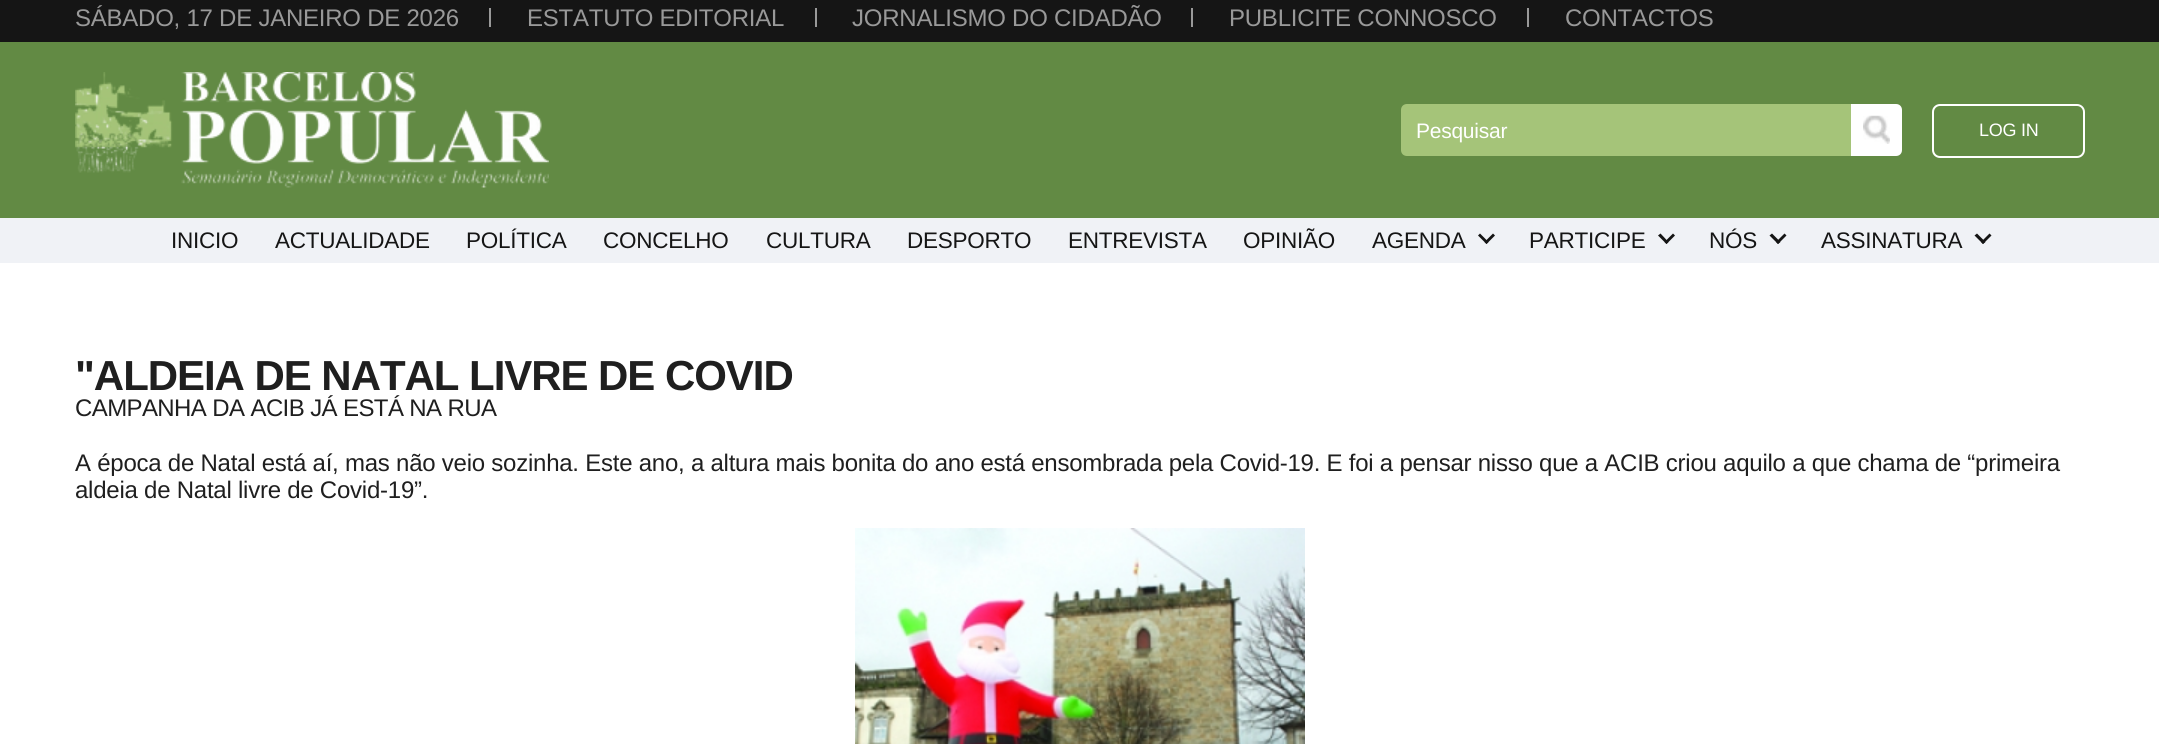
import math
import cairo

surface = cairo.ImageSurface(cairo.FORMAT_RGB24, 2159, 744)
c = cairo.Context(surface)
options = cairo.FontOptions()
options.set_hint_metrics(cairo.HINT_METRICS_OFF)
options.set_hint_style(cairo.HINT_STYLE_NONE)
c.set_font_options(options)
c.set_miter_limit(4)
def C(code):
 c.set_source_rgb(*(v / 255 for v in bytes.fromhex(code[-6:])))
def F(family, size, italic, bold):
 c.select_font_face(family, cairo.FONT_SLANT_ITALIC if italic else cairo.FONT_SLANT_NORMAL, cairo.FONT_WEIGHT_BOLD if bold else cairo.FONT_WEIGHT_NORMAL)
 c.set_font_size(size)
def L(x, y, s, letter, word):
 c.move_to(x, y)
 for ch in s:
  c.show_text(ch)
  c.rel_move_to(letter + word * (ch == ' '), 0)
def R(x, y, w, h):
 c.rectangle(x, y, w, h)
 c.fill()
def Q(x, y, w, h, r):
 c.new_sub_path()
 for i, (u, v) in enumerate([(x + w - r, y + h - r), (x + r, y + h - r), (x + r, y + r), (x + w - r, y + r)]):
  c.arc(u, v, r, i * math.pi / 2, (i + 1) * math.pi / 2)
 c.close_path()
def I(path, x, y, w, h):
 c.save()
 c.set_source_surface(cairo.ImageSurface.create_from_png(path), x, y)
 c.rectangle(x, y, w, h)
 c.fill()
 c.restore()
C('ffffff')
c.paint()
C('151515')
R(0,0,2159,42)
C('999999')
R(489,8,2,19)
F('Liberation Sans',24,0,0)
L(75,26,'SÁBADO, 17 DE JANEIRO DE 2026',-.24,0)
R(815,8,2,19)
L(527,26,'ESTATUTO EDITORIAL',-.24,0)
R(1191,8,2,19)
L(852,26,'JORNALISMO DO CIDADÃO',-.24,0)
R(1527,8,2,19)
L(1229,26,'PUBLICITE CONNOSCO',-.24,0)
L(1565,26,'CONTACTOS',-.24,0)
C('628a44')
R(0,42,2159,176)
I('1.png',75,72,474,116)
C('a5c479')
c.new_path()
c.move_to(1407,104)
c.line_to(1851,104)
c.line_to(1851,156)
c.line_to(1407,156)
c.curve_to(1403.5,156,1401,153.5,1401,150)
c.line_to(1401,110)
c.curve_to(1401,106.5,1403.5,104,1407,104)
c.close_path()
c.fill()
F('Liberation Sans',21,0,0)
C('ffffff')
L(1416,138,'Pesquisar',-.25,0)
c.new_path()
c.move_to(1851,104)
c.line_to(1896,104)
c.curve_to(1899.5,104,1902,106.5,1902,110)
c.line_to(1902,150)
c.curve_to(1902,153.5,1899.5,156,1896,156)
c.line_to(1851,156)
c.close_path()
c.fill()
I('2.png',1863,115,27,29)
Q(1933,105,151,52,7)
c.stroke()
F('Liberation Sans',18,0,0)
L(1979,136,'LOG IN',-.25,0)
C('f0f2f6')
R(0,218,2159,45)
F('Liberation Sans',22.5,0,0)
C('151515')
L(171,248,'INICIO',-.25,0)
L(275,248,'ACTUALIDADE',-.25,0)
L(466,248,'POLÍTICA',-.25,0)
L(603,248,'CONCELHO',-.25,0)
L(766,248,'CULTURA',-.25,0)
L(907,248,'DESPORTO',-.25,0)
L(1068,248,'ENTREVISTA',-.25,0)
L(1243,248,'OPINIÃO',-.25,0)
L(1372,248,'AGENDA',-.25,0)
c.new_path()
c.move_to(1493,233.5)
c.line_to(1495,235.5)
c.line_to(1486.5,244)
c.line_to(1484.5,242)
c.close_path()
c.fill()
c.new_path()
c.move_to(1480,233.5)
c.line_to(1488.5,242)
c.line_to(1486.5,244)
c.line_to(1478,235.5)
c.close_path()
c.fill()
L(1529,248,'PARTICIPE',-.25,0)
c.new_path()
c.move_to(1673,233.5)
c.line_to(1675,235.5)
c.line_to(1666.5,244)
c.line_to(1664.5,242)
c.close_path()
c.fill()
c.new_path()
c.move_to(1660.5,233.5)
c.line_to(1668.5,242)
c.line_to(1666.5,244)
c.line_to(1658,235.5)
c.close_path()
c.fill()
L(1709,248,'NÓS',-.25,0)
c.new_path()
c.move_to(1784.5,233.5)
c.line_to(1786.5,235.5)
c.line_to(1778,244)
c.line_to(1776,242)
c.close_path()
c.fill()
c.new_path()
c.move_to(1772,233.5)
c.line_to(1780.5,242)
c.line_to(1778,244)
c.line_to(1769.5,235.5)
c.close_path()
c.fill()
L(1821,248,'ASSINATURA',-.25,0)
c.new_path()
c.move_to(1989.5,233.5)
c.line_to(1991.5,235.5)
c.line_to(1983,244)
c.line_to(1981,242)
c.close_path()
c.fill()
c.new_path()
c.move_to(1977,233.5)
c.line_to(1985.5,242)
c.line_to(1983,244)
c.line_to(1974.5,235.5)
c.close_path()
c.fill()
F('Liberation Sans',42,0,1)
C('1f1f1f')
L(75,390,'"ALDEIA DE NATAL LIVRE DE COVID',-1.05,0)
F('Liberation Sans',24,0,0)
L(75,416,'CAMPANHA DA ACIB JÁ ESTÁ NA RUA',-.6,0)
L(75,471,'A época de Natal está aí, mas não veio sozinha. Este ano, a altura mais bonita do ano está ensombrada pela Covid-19. E foi a pensar nisso que a ACIB criou aquilo a que chama de “primeira',-.24,0)
L(75,498,'aldeia de Natal livre de Covid-19”.',-.24,0)
I('3.png',855,528,450,216)
surface.write_to_png('o.png')
